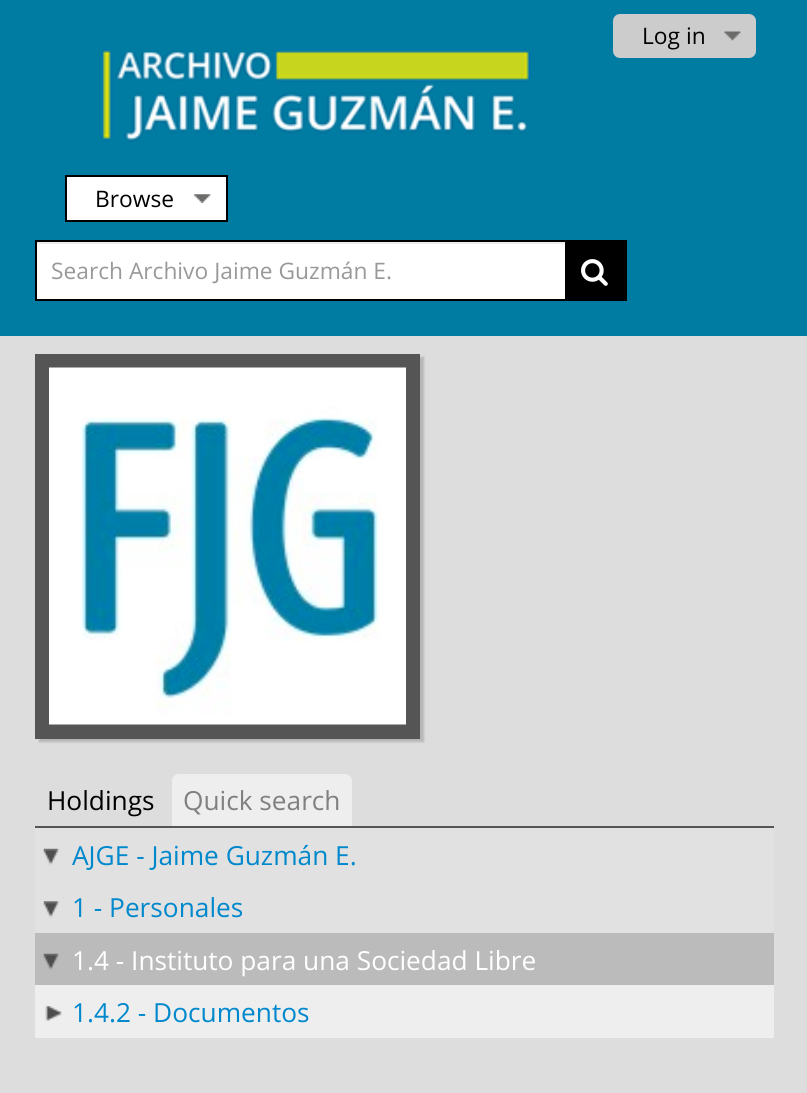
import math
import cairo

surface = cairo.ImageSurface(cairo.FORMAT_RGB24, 807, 1093)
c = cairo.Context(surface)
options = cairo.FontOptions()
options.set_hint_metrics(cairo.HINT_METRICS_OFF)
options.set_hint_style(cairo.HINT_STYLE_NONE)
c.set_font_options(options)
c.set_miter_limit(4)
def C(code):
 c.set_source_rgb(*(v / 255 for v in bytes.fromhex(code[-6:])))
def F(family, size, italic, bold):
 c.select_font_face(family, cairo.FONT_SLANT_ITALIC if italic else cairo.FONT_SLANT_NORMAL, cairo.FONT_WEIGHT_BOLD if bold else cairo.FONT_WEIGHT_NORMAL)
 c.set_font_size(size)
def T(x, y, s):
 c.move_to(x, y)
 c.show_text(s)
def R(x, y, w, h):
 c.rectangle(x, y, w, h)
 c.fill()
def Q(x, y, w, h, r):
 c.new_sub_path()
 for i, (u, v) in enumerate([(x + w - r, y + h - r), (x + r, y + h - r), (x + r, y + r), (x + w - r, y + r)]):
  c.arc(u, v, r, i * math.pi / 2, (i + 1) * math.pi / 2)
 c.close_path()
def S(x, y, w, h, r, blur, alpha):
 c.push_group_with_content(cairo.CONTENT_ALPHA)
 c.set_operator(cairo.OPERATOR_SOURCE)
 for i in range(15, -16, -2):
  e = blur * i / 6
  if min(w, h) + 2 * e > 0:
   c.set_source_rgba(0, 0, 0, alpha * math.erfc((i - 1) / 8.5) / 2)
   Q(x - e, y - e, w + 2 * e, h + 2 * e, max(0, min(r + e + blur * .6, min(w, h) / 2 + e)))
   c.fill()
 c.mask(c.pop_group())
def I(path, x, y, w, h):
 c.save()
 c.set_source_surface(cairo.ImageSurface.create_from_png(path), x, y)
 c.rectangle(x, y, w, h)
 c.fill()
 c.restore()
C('dddddd')
c.paint()
C('007ca2')
R(0,0,807,336)
I('1.png',101,49,430,93)
C('cccccc')
Q(613,14,143,44,7)
c.fill()
I('2.png',724,31,17,10)
F('Open Sans',22.75,0,0)
C('000000')
T(642,44,'Log in')
C('ffffff')
R(67,177,159,43)
I('3.png',194,194,17,9)
c.rectangle(66,176,161,45)
C('000000')
c.stroke()
T(95,207,'Browse')
C('ffffff')
R(37,244,528,55)
C('ececec')
R(37,242,528,2)
c.rectangle(36,241,590,59)
C('000000')
c.stroke()
C('999999')
T(51,279,'Search Archivo Jaime Guzmán E.')
C('000000')
c.new_path()
c.move_to(565,240)
c.line_to(620,240)
c.curve_to(624,240,627,243,627,247)
c.line_to(627,294)
c.curve_to(627,298,624,301,620,301)
c.line_to(565,301)
c.close_path()
c.fill()
I('4.png',581,259,27,27)
C('191919')
S(39,357,385,385,0,1,.2)
C('555555')
R(35,354,385,385)
I('5.png',49,367,357,358)
R(35,826,739,2)
F('Open Sans',26.25,0,0)
C('000000')
T(47,810,'Holdings')
C('eeeeee')
c.new_path()
c.move_to(179,774)
c.line_to(345,774)
c.curve_to(349,774,352,777,352,781)
c.line_to(352,826)
c.line_to(172,826)
c.line_to(172,781)
c.curve_to(172,777,175,774,179,774)
c.close_path()
c.fill()
C('808080')
T(183,810,'Quick search')
C('eeeeee')
R(35,985,739,53)
C('e1e1e1')
R(35,828,739,105)
I('6.png',43,848,17,17)
C('0088cc')
T(72,865,'AJGE - Jaime Guzmán E.')
I('7.png',43,901,17,17)
T(72,917,'1 - Personales')
C('bbbbbb')
R(35,933,739,52)
I('8.png',43,953,17,17)
C('ffffff')
T(72,970,'1.4 - Instituto para una Sociedad Libre')
I('9.png',45,1006,17,15)
C('0088cc')
T(72,1022,'1.4.2 - Documentos')
surface.write_to_png('o.png')
